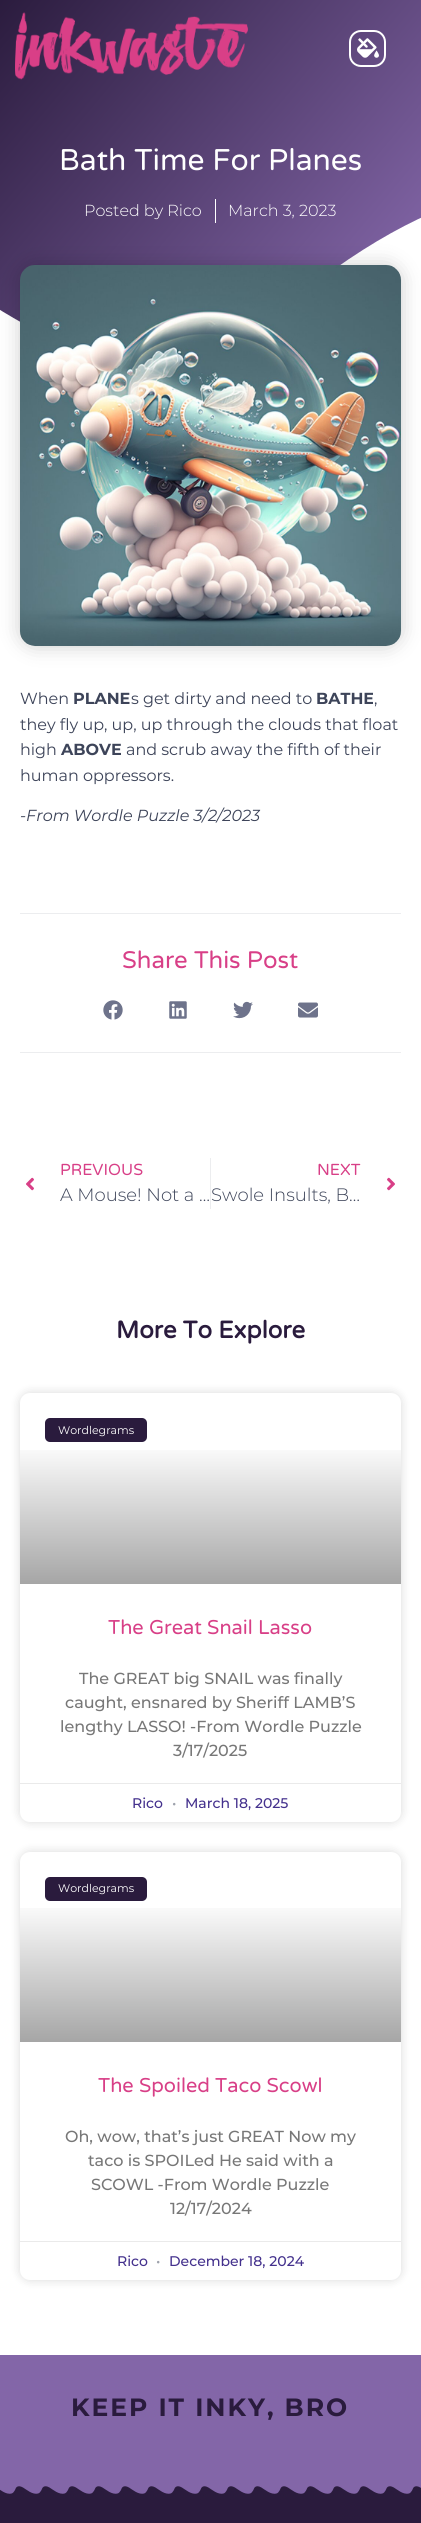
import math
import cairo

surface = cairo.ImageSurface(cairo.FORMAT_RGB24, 421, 2523)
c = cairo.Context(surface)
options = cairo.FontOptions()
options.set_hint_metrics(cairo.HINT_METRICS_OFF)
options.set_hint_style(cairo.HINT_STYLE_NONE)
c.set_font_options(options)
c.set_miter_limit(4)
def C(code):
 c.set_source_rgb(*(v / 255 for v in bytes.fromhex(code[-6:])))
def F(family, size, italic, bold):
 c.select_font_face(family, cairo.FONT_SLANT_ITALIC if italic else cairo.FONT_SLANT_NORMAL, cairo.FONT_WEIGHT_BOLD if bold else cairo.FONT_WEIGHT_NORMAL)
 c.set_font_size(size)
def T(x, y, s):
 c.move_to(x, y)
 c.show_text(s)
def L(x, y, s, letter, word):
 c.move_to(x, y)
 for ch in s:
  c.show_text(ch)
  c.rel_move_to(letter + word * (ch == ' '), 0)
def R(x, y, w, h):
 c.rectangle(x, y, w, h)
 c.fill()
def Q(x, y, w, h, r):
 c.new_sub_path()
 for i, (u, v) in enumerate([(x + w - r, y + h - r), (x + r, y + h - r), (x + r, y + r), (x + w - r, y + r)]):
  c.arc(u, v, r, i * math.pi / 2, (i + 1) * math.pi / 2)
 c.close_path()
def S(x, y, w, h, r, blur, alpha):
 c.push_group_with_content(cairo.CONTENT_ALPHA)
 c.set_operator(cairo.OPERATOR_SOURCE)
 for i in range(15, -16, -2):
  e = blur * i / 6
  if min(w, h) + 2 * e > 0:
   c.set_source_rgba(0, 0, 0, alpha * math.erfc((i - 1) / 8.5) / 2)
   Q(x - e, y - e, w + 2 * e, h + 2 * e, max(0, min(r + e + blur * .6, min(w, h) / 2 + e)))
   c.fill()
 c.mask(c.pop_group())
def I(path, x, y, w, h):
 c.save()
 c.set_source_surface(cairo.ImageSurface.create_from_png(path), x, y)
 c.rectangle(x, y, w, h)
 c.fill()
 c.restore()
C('ffffff')
c.paint()
gradient = cairo.LinearGradient(-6.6,.8,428,365)
gradient.add_color_stop_rgba(0,0.165,0.106,0.239,1)
gradient.add_color_stop_rgba(.89,0.514,0.4,0.659,1)
c.set_source(gradient)
R(0,0,421,322)
I('1.png',15,12,233,68)
Q(350,31,35,35,11)
C('ffffff')
c.stroke()
I('2.png',357,38,22,20)
F('Varela Round',30,0,0)
T(59,170,'Bath Time For Planes')
c.new_path()
c.move_to(125,361)
c.curve_to(150,366,182,361,208,351)
c.curve_to(234,341,286,305,318,281)
c.curve_to(401,219,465,195,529,184)
c.curve_to(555,180,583,178,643,189)
c.curve_to(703,201,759,239,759,239)
c.line_to(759,374)
c.line_to(-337,374)
c.line_to(-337,315)
c.curve_to(-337,315,-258,251,-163,255)
c.curve_to(-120,257,-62,269,-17,299)
c.curve_to(7,315,41,335,71,346)
c.curve_to(101,359,114,359,125,361)
c.close_path()
c.fill()
F('Montserrat Light',16,0,0)
T(84,216,'Posted by Rico')
R(215,199,1,24)
T(228,216,'March 3, 2023')
C('000000')
S(20,265,381,381,15,10,.2)
I('3.png',20,265,381,381)
F('Montserrat',16,0,0)
C('3d4459')
T(20,704,'When')
F('Montserrat',16,0,1)
T(73,704,'PLANE')
F('Montserrat',16,0,0)
T(131,704,'s get dirty and need to')
F('Montserrat',16,0,1)
T(316,704,'BATHE')
F('Montserrat',16,0,0)
T(374,704,',')
T(20,730,'they fly up, up, up through the clouds that float')
T(20,755,'high')
F('Montserrat',16,0,1)
T(61,755,'ABOVE')
F('Montserrat',16,0,0)
T(126,755,'and scrub away the fifth of their')
T(20,781,'human oppressors.')
F('Montserrat',16,1,0)
T(20,821,'-From Wordle Puzzle 3/2/2023')
C('ecedef')
R(20,913,381,1)
R(20,1052,381,1)
F('Varela Round',24,0,0)
C('d83f87')
T(122,968,'Share This Post')
I('4.png',103,1000,20,20)
I('5.png',169,1001,18,18)
I('6.png',233,1001,20,18)
I('7.png',298,1002,20,16)
I('8.png',26,1177,8,14)
F('Varela Round',16,0,0)
T(60,1175,'PREVIOUS')
F('Montserrat Light',18,0,0)
C('3d4459')
T(60,1201,'A Mouse! Not a …')
C('ecedef')
R(210,1158,1,51)
F('Varela Round',16,0,0)
C('d83f87')
T(317,1175,'NEXT')
F('Montserrat Light',18,0,0)
C('3d4459')
T(211,1201,'Swole Insults, B…')
I('9.png',387,1177,8,14)
F('Varela Round',24,0,1)
C('2a1b3d')
T(116,1338,'More To Explore')
C('000000')
S(20,1393,381,429,10,5,.15)
C('ffffff')
Q(20,1393,381,429,10)
c.fill()
C('2a1b3d')
Q(45,1418,102,24,5)
c.fill()
F('Montserrat',11,0,0)
C('ffffff')
T(58,1434,'Wordlegrams')
gradient = cairo.LinearGradient(211,1584,211,1393)
gradient.add_color_stop_rgba(0,0,0,0,.35)
gradient.add_color_stop_rgba(.75,0,0,0,0)
c.set_source(gradient)
R(20,1450,381,134)
F('Varela Round',20,0,0)
C('d83f87')
T(108,1634,'The Great Snail Lasso')
F('Montserrat Medium',16,0,0)
C('777777')
T(79,1684,'The GREAT big SNAIL was finally')
T(65,1708,'caught, ensnared by Sheriff LAMB’S')
T(60,1732,'lengthy LASSO! -From Wordle Puzzle')
T(173,1756,'3/17/2025')
C('eaeaea')
R(20,1783,381,1)
F('Montserrat Medium',14,0,0)
C('44318d')
T(132,1808,'Rico')
C('9ea2ac')
T(172,1808,'•')
C('44318d')
T(185,1808,'March 18, 2025')
C('000000')
S(20,1852,381,428,10,5,.15)
C('ffffff')
Q(20,1852,381,428,10)
c.fill()
C('2a1b3d')
Q(45,1877,102,24,5)
c.fill()
F('Montserrat',11,0,0)
C('ffffff')
T(58,1892,'Wordlegrams')
gradient = cairo.LinearGradient(211,2042,211,1852)
gradient.add_color_stop_rgba(0,0,0,0,.35)
gradient.add_color_stop_rgba(.75,0,0,0,0)
c.set_source(gradient)
R(20,1908,381,134)
F('Varela Round',20,0,0)
C('d83f87')
T(98,2092,'The Spoiled Taco Scowl')
F('Montserrat Medium',16,0,0)
C('777777')
T(65,2142,'Oh, wow, that’s just GREAT Now my')
T(88,2166,'taco is SPOILed He said with a')
T(91,2190,'SCOWL -From Wordle Puzzle')
T(170,2214,'12/17/2024')
C('eaeaea')
R(20,2241,381,1)
F('Montserrat Medium',14,0,0)
C('44318d')
T(117,2266,'Rico')
C('9ea2ac')
T(156,2266,'•')
C('44318d')
T(169,2266,'December 18, 2024')
C('8366a8')
R(0,2355,421,130)
F('Montserrat',25,0,1)
C('2a1b3d')
L(71,2416,'KEEP IT INKY, BRO',2,0)
R(0,2486,421,37)
I('10.png',0,2485,421,9)
surface.write_to_png('o.png')
